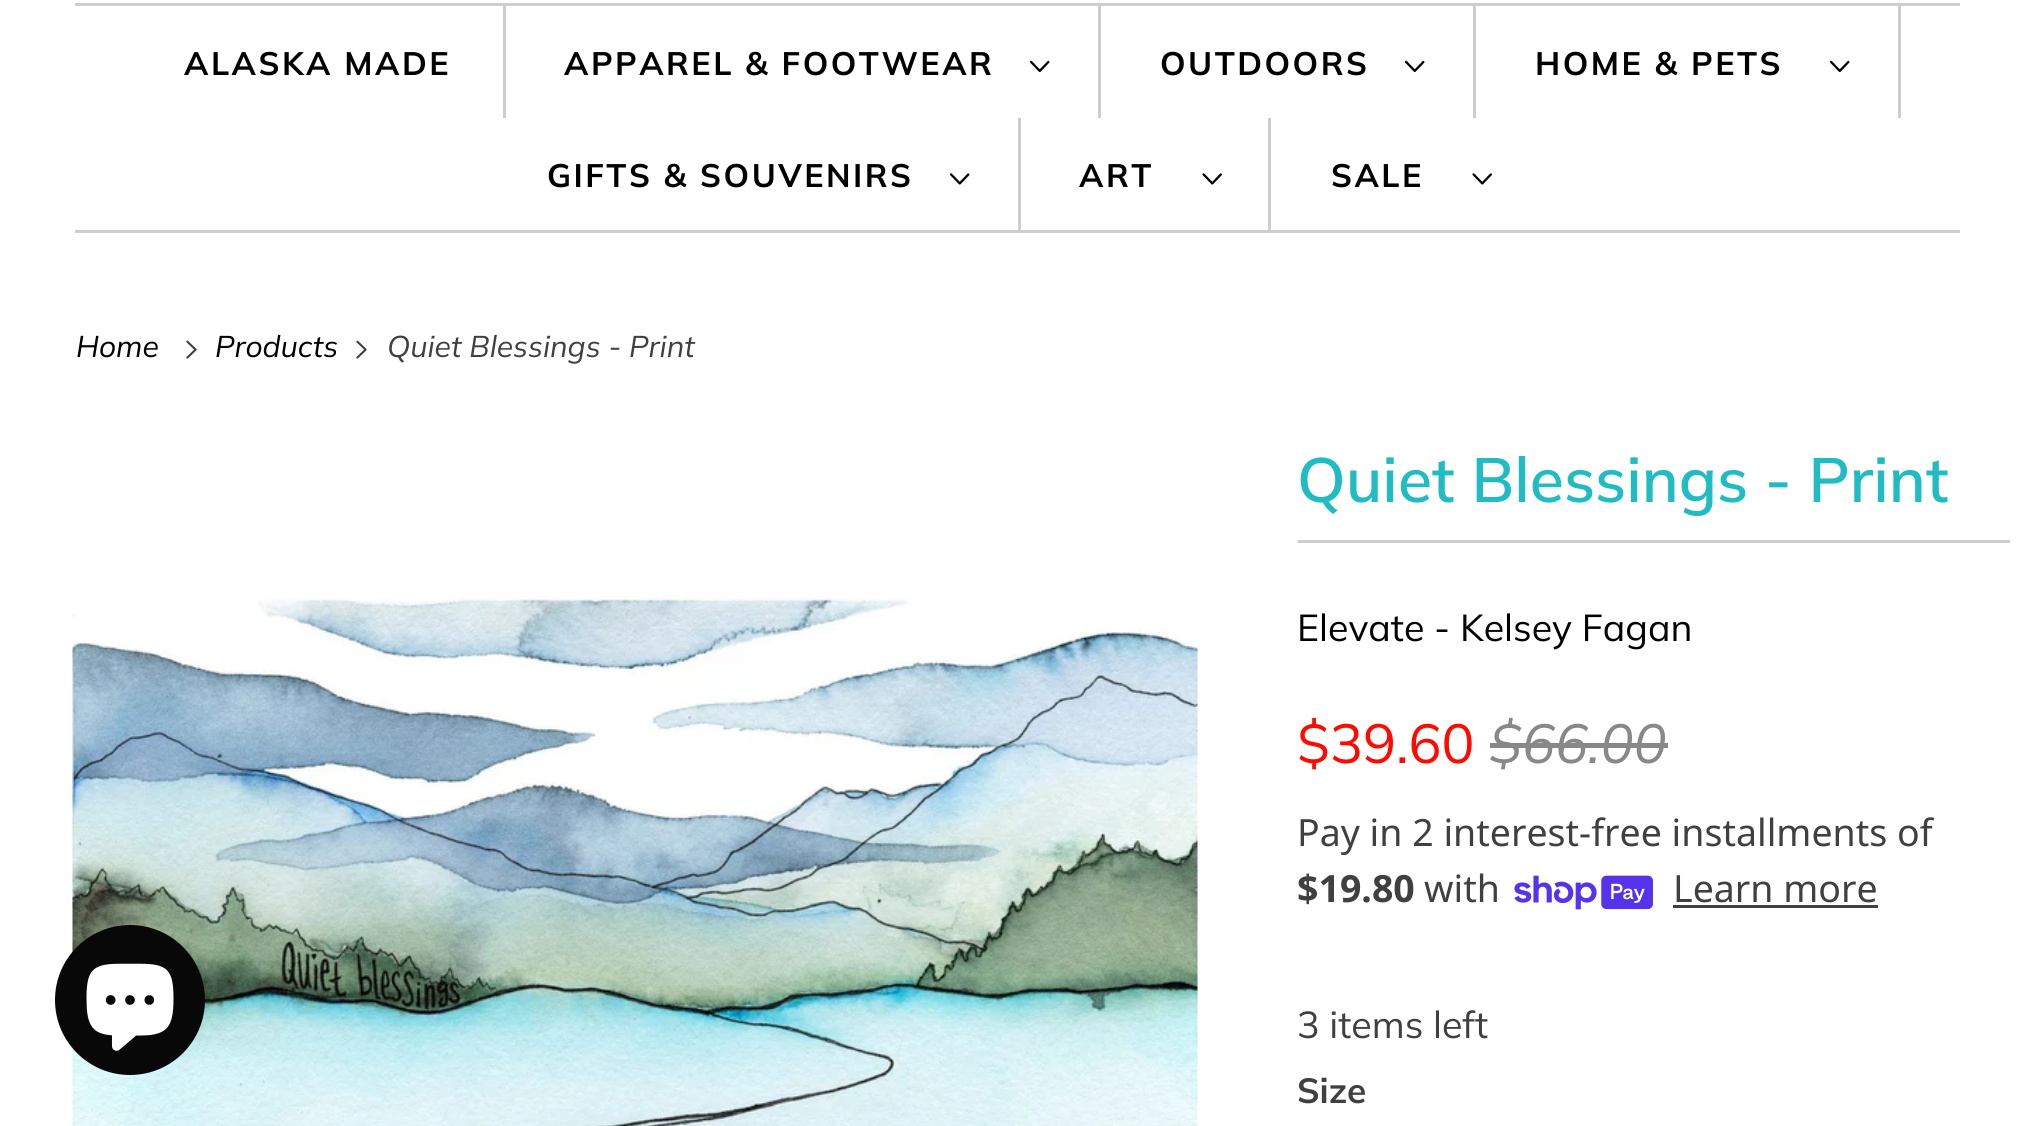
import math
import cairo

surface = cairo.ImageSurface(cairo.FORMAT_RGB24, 2034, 1126)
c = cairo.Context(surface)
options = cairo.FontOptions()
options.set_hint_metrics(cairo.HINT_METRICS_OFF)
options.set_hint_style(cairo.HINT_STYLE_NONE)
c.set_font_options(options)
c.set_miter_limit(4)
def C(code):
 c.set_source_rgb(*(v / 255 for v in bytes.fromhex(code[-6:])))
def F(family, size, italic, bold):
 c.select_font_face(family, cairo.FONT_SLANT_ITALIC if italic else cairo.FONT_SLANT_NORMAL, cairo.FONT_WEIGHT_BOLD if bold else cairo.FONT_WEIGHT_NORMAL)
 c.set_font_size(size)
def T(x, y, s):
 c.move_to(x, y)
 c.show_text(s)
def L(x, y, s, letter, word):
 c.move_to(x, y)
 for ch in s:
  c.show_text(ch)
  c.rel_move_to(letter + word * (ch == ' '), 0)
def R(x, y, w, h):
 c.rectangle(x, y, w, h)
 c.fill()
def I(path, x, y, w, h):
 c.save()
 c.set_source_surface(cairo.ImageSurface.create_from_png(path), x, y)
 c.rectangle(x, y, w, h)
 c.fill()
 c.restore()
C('ffffff')
c.paint()
C('cdcdcd')
R(75,3,1885,3)
R(75,230,1885,3)
R(503,5,3,113)
F('Muli',32.5,0,1)
C('000000')
L(184,75,'ALASKA MADE',2.5,0)
C('cdcdcd')
R(1098,5,3,113)
C('000000')
L(564,75,'APPAREL & FOOTWEAR',2.5,0)
I('1.png',1030,60,20,12)
C('cdcdcd')
R(1473,5,3,113)
C('000000')
L(1160,75,'OUTDOORS',2.5,0)
I('1.png',1405,60,20,12)
C('cdcdcd')
R(1898,5,3,113)
C('000000')
L(1535,75,'HOME & PETS',2.5,0)
I('1.png',1830,60,20,12)
C('cdcdcd')
R(1018,118,3,112)
C('000000')
L(547,187,'GIFTS & SOUVENIRS',2.5,0)
I('2.png',950,173,20,12)
C('cdcdcd')
R(1268,118,3,112)
C('000000')
L(1079,187,'ART',2.5,0)
I('3.png',1202,173,20,12)
L(1331,187,'SALE',2.5,0)
I('3.png',1472,173,20,12)
F('Muli',30,1,0)
T(76,357,'Home')
I('4.png',186,340,11,19)
T(215,357,'Products')
I('4.png',356,340,11,19)
C('404040')
T(387,357,'Quiet Blessings - Print')
I('6.png',72,597,1126,529)
C('080808')
c.arc(130,1000,75,0,2 * math.pi)
c.fill()
I('5.png',86,963,88,88)
C('cdcdcd')
R(1298,540,712,3)
F('Muli SemiBold',62.5,0,0)
C('21bcc3')
T(1297,502,'Quiet Blessings - Print')
F('Muli',37.5,0,0)
C('000000')
T(1297,641,'Elevate - Kelsey Fagan')
F('Muli',55,0,0)
C('ff0900')
T(1297,763,'$39.60')
F('Muli',55,1,0)
C('888888')
T(1489,763,'$66.00')
R(1490,743,178,5)
F('Noto Sans',37.5,0,0)
C('404040')
T(1297,846,'Pay in 2 interest-free installments of')
F('Noto Sans',37.5,0,1)
T(1297,902,'$19.80')
F('Noto Sans',37.5,0,0)
T(1424,902,'with')
I('7.png',1514,875,139,35)
T(1673,902,'Learn more')
R(1673,905,205,3)
F('Muli',37.5,0,0)
T(1297,1038,'3 items left')
F('Muli',35,0,1)
T(1297,1103,'Size')
surface.write_to_png('o.png')
